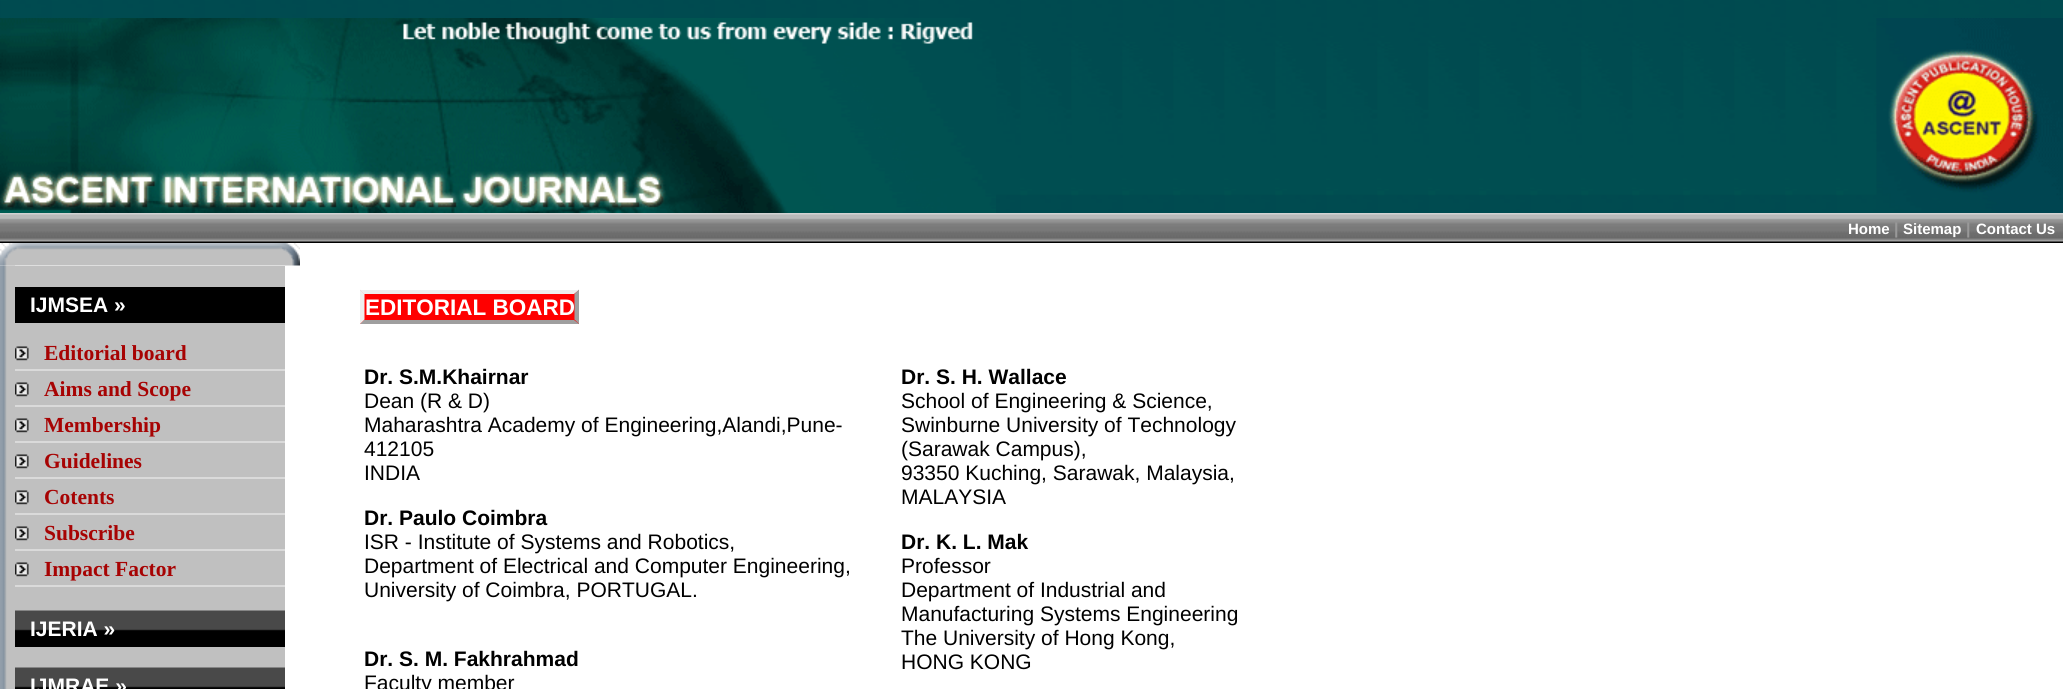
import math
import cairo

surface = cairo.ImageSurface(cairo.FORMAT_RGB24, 2063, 689)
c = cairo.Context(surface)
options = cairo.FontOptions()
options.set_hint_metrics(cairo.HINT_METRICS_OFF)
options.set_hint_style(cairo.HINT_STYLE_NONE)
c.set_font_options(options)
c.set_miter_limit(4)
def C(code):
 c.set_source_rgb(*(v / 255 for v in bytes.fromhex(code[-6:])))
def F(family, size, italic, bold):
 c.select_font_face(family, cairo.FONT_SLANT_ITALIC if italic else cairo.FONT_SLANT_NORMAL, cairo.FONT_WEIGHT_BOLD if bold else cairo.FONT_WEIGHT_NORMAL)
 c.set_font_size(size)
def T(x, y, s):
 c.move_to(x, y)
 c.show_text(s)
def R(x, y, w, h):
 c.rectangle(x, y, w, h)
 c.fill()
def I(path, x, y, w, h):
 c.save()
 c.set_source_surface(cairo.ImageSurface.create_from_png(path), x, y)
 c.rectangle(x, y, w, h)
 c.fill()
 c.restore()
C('ffffff')
c.paint()
I('1.png',0,0,2063,213)
I('2.png',0,18,996,195)
I('3.png',1876,18,187,195)
I('4.png',0,213,2063,30)
F('Liberation Sans',15,0,1)
C('ffffff')
T(1848,234,'Home')
F('Liberation Sans',16,0,1)
C('999999')
T(1894,234,'|')
F('Liberation Sans',15,0,1)
C('ffffff')
T(1903,234,'Sitemap')
F('Liberation Sans',16,0,1)
C('999999')
T(1966,234,'|')
F('Liberation Sans',15,0,1)
C('ffffff')
T(1976,234,'Contact Us')
I('5.png',0,243,300,23)
I('6.png',0,265,15,424)
C('c0c0c0')
R(15,266,270,402)
C('000000')
R(15,287,270,36)
F('Liberation Sans',21,0,1)
C('ffffff')
T(30,312,'IJMSEA »')
I('7.png',15,346,14,15)
C('dadada')
R(15,369,270,2)
F('Liberation Serif',21.5,0,1)
C('a70303')
T(44,360,'Editorial board')
I('7.png',15,382,14,15)
C('dadada')
R(15,405,270,2)
C('a70303')
T(44,396,'Aims and Scope')
I('7.png',15,418,14,15)
C('dadada')
R(15,441,270,2)
C('a70303')
T(44,432,'Membership')
I('7.png',15,454,14,15)
C('dadada')
R(15,477,270,2)
C('a70303')
T(44,468,'Guidelines')
I('7.png',15,490,14,15)
C('dadada')
R(15,513,270,2)
C('a70303')
T(44,504,'Cotents')
I('7.png',15,526,14,15)
C('dadada')
R(15,549,270,2)
C('a70303')
T(44,540,'Subscribe')
I('7.png',15,562,14,15)
C('dadada')
R(15,585,270,2)
C('a70303')
T(44,576,'Impact Factor')
C('000000')
R(15,631,270,16)
I('8.png',15,610,270,21)
F('Liberation Sans',21,0,1)
C('ffffff')
T(30,636,'IJERIA »')
C('000000')
R(15,688,270,1)
I('8.png',15,667,270,21)
C('ffffff')
T(30,693,'IJMRAE »')
C('ff0000')
R(360,290,219,34)
F('Liberation Sans',22.5,0,1)
C('ffffff')
T(365,315,'EDITORIAL BOARD')
C('eeeeee')
c.new_path()
c.move_to(360,290)
c.line_to(579,290)
c.line_to(574,294)
c.line_to(364,294)
c.close_path()
c.fill()
C('9f9f9f')
c.new_path()
c.move_to(579,289.5)
c.line_to(579,324)
c.line_to(574.5,319.5)
c.line_to(574.5,294)
c.close_path()
c.fill()
c.new_path()
c.move_to(579,324)
c.line_to(360,324)
c.line_to(364,320)
c.line_to(574,320)
c.close_path()
c.fill()
C('eeeeee')
c.new_path()
c.move_to(360,324)
c.line_to(360,289.5)
c.line_to(364.5,294)
c.line_to(364.5,319.5)
c.close_path()
c.fill()
F('Liberation Sans',21,0,1)
C('000000')
T(364,384,'Dr. S.M.Khairnar')
F('Liberation Sans',21,0,0)
T(364,408,'Dean (R & D)')
T(364,432,'Maharashtra Academy of Engineering,Alandi,Pune-')
T(364,456,'412105')
T(364,480,'INDIA')
F('Liberation Sans',21,0,1)
T(364,525,'Dr. Paulo Coimbra')
F('Liberation Sans',21,0,0)
T(364,549,'ISR - Institute of Systems and Robotics,')
T(364,573,'Department of Electrical and Computer Engineering,')
T(364,597,'University of Coimbra, PORTUGAL.')
F('Liberation Sans',21,0,1)
T(364,666,'Dr. S. M. Fakhrahmad')
F('Liberation Sans',21,0,0)
T(364,690,'Faculty member')
F('Liberation Sans',21,0,1)
T(901,384,'Dr. S. H. Wallace')
F('Liberation Sans',21,0,0)
T(901,408,'School of Engineering & Science,')
T(901,432,'Swinburne University of Technology')
T(901,456,'(Sarawak Campus),')
T(901,480,'93350 Kuching, Sarawak, Malaysia,')
T(901,504,'MALAYSIA')
F('Liberation Sans',21,0,1)
T(901,549,'Dr. K. L. Mak')
F('Liberation Sans',21,0,0)
T(901,573,'Professor')
T(901,597,'Department of Industrial and')
T(901,621,'Manufacturing Systems Engineering')
T(901,645,'The University of Hong Kong,')
T(901,669,'HONG KONG')
surface.write_to_png('o.png')
